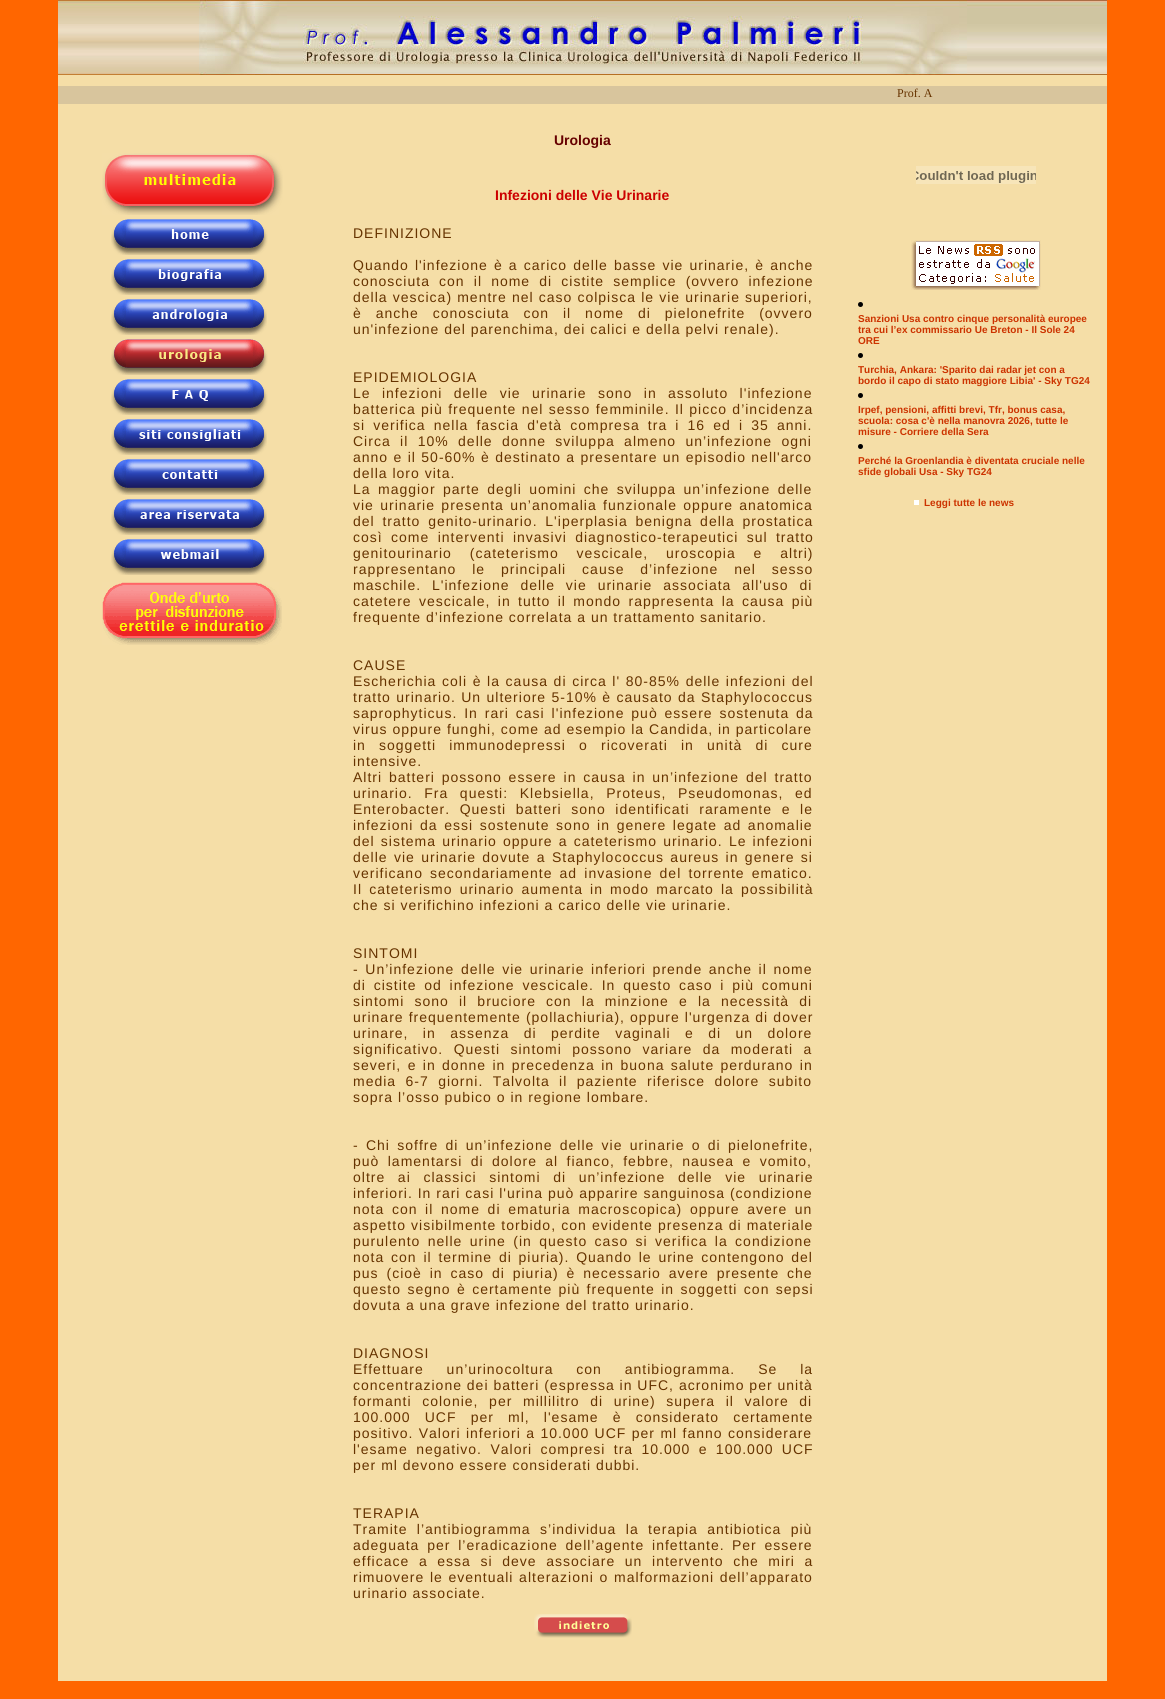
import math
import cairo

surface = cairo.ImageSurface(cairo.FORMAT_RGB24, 1165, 1699)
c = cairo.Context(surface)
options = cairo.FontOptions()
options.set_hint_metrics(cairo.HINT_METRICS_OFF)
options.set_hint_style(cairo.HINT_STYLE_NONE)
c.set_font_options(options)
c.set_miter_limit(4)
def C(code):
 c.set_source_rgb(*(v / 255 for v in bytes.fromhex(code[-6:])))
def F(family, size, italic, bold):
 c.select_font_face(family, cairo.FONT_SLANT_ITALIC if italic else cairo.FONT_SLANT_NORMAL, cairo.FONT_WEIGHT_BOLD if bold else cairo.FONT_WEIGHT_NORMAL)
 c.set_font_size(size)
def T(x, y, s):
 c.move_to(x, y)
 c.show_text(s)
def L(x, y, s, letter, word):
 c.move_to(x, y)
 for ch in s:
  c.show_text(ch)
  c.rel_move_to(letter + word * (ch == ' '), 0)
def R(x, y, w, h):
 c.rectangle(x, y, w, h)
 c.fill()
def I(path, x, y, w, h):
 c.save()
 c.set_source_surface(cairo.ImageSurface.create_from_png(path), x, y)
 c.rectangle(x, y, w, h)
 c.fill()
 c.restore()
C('ff6600')
c.paint()
C('f5dea7')
R(58,75,1049,1606)
I('1.png',58,0,141,75)
I('2.png',199,0,768,75)
I('3.png',967,0,140,75)
C('d8c59d')
R(58,86,1049,18)
F('Liberation Serif',12,0,0)
C('663300')
T(897,97,'Prof. A')
I('4.png',102,153,181,62)
I('5.png',111,219,157,36)
I('6.png',111,259,156,36)
I('7.png',111,299,156,36)
I('8.png',111,339,157,36)
I('9.png',111,379,157,36)
I('10.png',111,419,156,36)
I('11.png',111,459,157,36)
I('12.png',111,499,156,36)
I('13.png',111,539,156,36)
I('14.png',102,582,180,63)
F('Liberation Sans',14,0,1)
C('660000')
T(554,145,'Urologia')
C('cc0000')
T(495,200,'Infezioni delle Vie Urinarie')
F('Liberation Sans',14,0,0)
C('663300')
L(353,238,'DEFINIZIONE',1,0)
L(353,270,'Quando l\'infezione è a carico delle basse vie urinarie, è anche',1,1.25)
L(353,286,'conosciuta con il nome di cistite semplice (ovvero infezione',1,4.25)
L(353,302,'della vescica) mentre nel caso colpisca le vie urinarie superiori,',1,.25)
L(353,318,'è anche conosciuta con il nome di pielonefrite (ovvero',1,9)
L(353,334,'un\'infezione del parenchima, dei calici e della pelvi renale).',1,0)
L(353,382,'EPIDEMIOLOGIA',1,0)
L(353,398,'Le infezioni delle vie urinarie sono in assoluto l\'infezione',1,6.5)
L(353,414,'batterica più frequente nel sesso femminile. Il picco d’incidenza',1,.5)
L(353,430,'si verifica nella fascia d\'età compresa tra i 16 ed i 35 anni.',1,3.25)
L(353,446,'Circa il 10% delle donne sviluppa almeno un’infezione ogni',1,4.5)
L(353,462,'anno e il 50-60% è destinato a presentare un episodio nell\'arco',1,.5)
L(353,478,'della loro vita.',1,0)
L(353,494,'La maggior parte degli uomini che sviluppa un’infezione delle',1,2.5)
L(353,510,'vie urinarie presenta un’anomalia funzionale oppure anatomica',1,1.5)
L(353,526,'del tratto genito-urinario. L\'iperplasia benigna della prostatica',1,2.9)
L(353,542,'così come interventi invasivi diagnostico-terapeutici sul tratto',1,3.5)
L(353,558,'genitourinario (cateterismo vescicale, uroscopia e altri)',1,13)
L(353,574,'rappresentano le principali cause d’infezione nel sesso',1,11)
L(353,590,'maschile. L\'infezione delle vie urinarie associata all\'uso di',1,6)
L(353,606,'catetere vescicale, in tutto il mondo rappresenta la causa più',1,2.5)
L(353,622,'frequente d’infezione correlata a un trattamento sanitario.',1,0)
L(353,670,'CAUSE',1,0)
L(353,686,'Escherichia coli è la causa di circa l\' 80-85% delle infezioni del',1,.75)
L(353,702,'tratto urinario. Un ulteriore 5-10% è causato da Staphylococcus',1,.5)
L(353,718,'saprophyticus. In rari casi l\'infezione può essere sostenuta da',1,2)
L(353,734,'virus oppure funghi, come ad esempio la Candida, in particolare',1,0)
L(353,750,'in soggetti immunodepressi o ricoverati in unità di cure',1,8.25)
L(353,766,'intensive.',1,0)
L(353,782,'Altri batteri possono essere in causa in un’infezione del tratto',1,2)
L(353,798,'urinario. Fra questi: Klebsiella, Proteus, Pseudomonas, ed',1,6.75)
L(353,814,'Enterobacter. Questi batteri sono identificati raramente e le',1,4.75)
L(353,830,'infezioni da essi sostenute sono in genere legate ad anomalie',1,1.75)
L(353,846,'del sistema urinario oppure a cateterismo urinario. Le infezioni',1,1.25)
L(353,862,'delle vie urinarie dovute a Staphylococcus aureus in genere si',1,1.5)
L(353,878,'verificano secondariamente ad invasione del torrente ematico.',1,2.25)
L(353,894,'Il cateterismo urinario aumenta in modo marcato la possibilità',1,2.25)
L(353,910,'che si verifichino infezioni a carico delle vie urinarie.',1,0)
L(353,958,'SINTOMI',1,0)
L(353,974,'- Un’infezione delle vie urinarie inferiori prende anche il nome',1,1.75)
L(353,990,'di cistite od infezione vescicale. In questo caso i più comuni',1,2.9)
L(353,1006,'sintomi sono il bruciore con la minzione e la necessità di',1,5.25)
L(353,1022,'urinare frequentemente (pollachiuria), oppure l\'urgenza di dover',1,.25)
L(353,1038,'urinare, in assenza di perdite vaginali e di un dolore',1,9.5)
L(353,1054,'significativo. Questi sintomi possono variare da moderati a',1,5.5)
L(353,1070,'severi, e in donne in precedenza in buona salute perdurano in',1,1.5)
L(353,1086,'media 6-7 giorni. Talvolta il paziente riferisce dolore subito',1,4.5)
L(353,1102,'sopra l’osso pubico o in regione lombare.',1,0)
L(353,1150,'- Chi soffre di un’infezione delle vie urinarie o di pielonefrite,',1,2.4)
L(353,1166,'può lamentarsi di dolore al fianco, febbre, nausea e vomito,',1,3.5)
L(353,1182,'oltre ai classici sintomi di un’infezione delle vie urinarie',1,7.75)
L(353,1198,'inferiori. In rari casi l\'urina può apparire sanguinosa (condizione',1,0)
L(353,1214,'nota con il nome di ematuria macroscopica) oppure avere un',1,2.75)
L(353,1230,'aspetto visibilmente torbido, con evidente presenza di materiale',1,.25)
L(353,1246,'purulento nelle urine (in questo caso si verifica la condizione',1,2.5)
L(353,1262,'nota con il termine di piuria). Quando le urine contengono del',1,1.9)
L(353,1278,'pus (cioè in caso di piuria) è necessario avere presente che',1,3)
L(353,1294,'questo segno è certamente più frequente in soggetti con sepsi',1,1.5)
L(353,1310,'dovuta a una grave infezione del tratto urinario.',1,0)
L(353,1358,'DIAGNOSI',1,0)
L(353,1374,'Effettuare un’urinocoltura con antibiogramma. Se la',1,18)
L(353,1390,'concentrazione dei batteri (espressa in UFC, acronimo per unità',1,0)
L(353,1406,'formanti colonie, per millilitro di urine) supera il valore di',1,5.75)
L(353,1422,'100.000 UCF per ml, l\'esame è considerato certamente',1,9.25)
L(353,1438,'positivo. Valori inferiori a 10.000 UCF per ml fanno considerare',1,.5)
L(353,1454,'l\'esame negativo. Valori compresi tra 10.000 e 100.000 UCF',1,3.5)
L(353,1470,'per ml devono essere considerati dubbi.',1,0)
L(353,1518,'TERAPIA',1,0)
L(353,1534,'Tramite l’antibiogramma s’individua la terapia antibiotica più',1,4.5)
L(353,1550,'adeguata per l’eradicazione dell’agente infettante.',1,2.9)
L(732,1550,'Per essere',1,2.9)
L(353,1566,'efficace a essa si deve associare un intervento che miri a',1,4.75)
L(353,1582,'rimuovere le eventuali alterazioni o malformazioni dell’apparato',1,.75)
L(353,1598,'urinario associate.',1,0)
I('15.png',534,1614,98,24)
I('16.png',916,166,120,18)
I('17.png',911,240,130,50)
C('000000')
c.arc(860.5,304.5,2.5,0,2 * math.pi)
c.fill()
F('Liberation Sans',10,0,1)
C('cc3300')
T(858,322,'Sanzioni Usa contro cinque personalità europee')
T(858,333,'tra cui l’ex commissario Ue Breton - Il Sole 24')
T(858,344,'ORE')
C('000000')
c.new_path()
c.arc(860.5,355.5,2.5,0,2 * math.pi)
c.fill()
C('cc3300')
T(858,373,'Turchia, Ankara: \'Sparito dai radar jet con a')
T(858,384,'bordo il capo di stato maggiore Libia\' - Sky TG24')
C('000000')
c.new_path()
c.arc(860.5,395.5,2.5,0,2 * math.pi)
c.fill()
C('cc3300')
T(858,413,'Irpef, pensioni, affitti brevi, Tfr, bonus casa,')
T(858,424,'scuola: cosa c\'è nella manovra 2026, tutte le')
T(858,435,'misure - Corriere della Sera')
C('000000')
c.new_path()
c.arc(860.5,446.5,2.5,0,2 * math.pi)
c.fill()
C('cc3300')
T(858,464,'Perché la Groenlandia è diventata cruciale nelle')
T(858,475,'sfide globali Usa - Sky TG24')
C('ffffff')
R(914,500,5,5)
C('cc3300')
T(924,506,'Leggi tutte le news')
surface.write_to_png('o.png')
